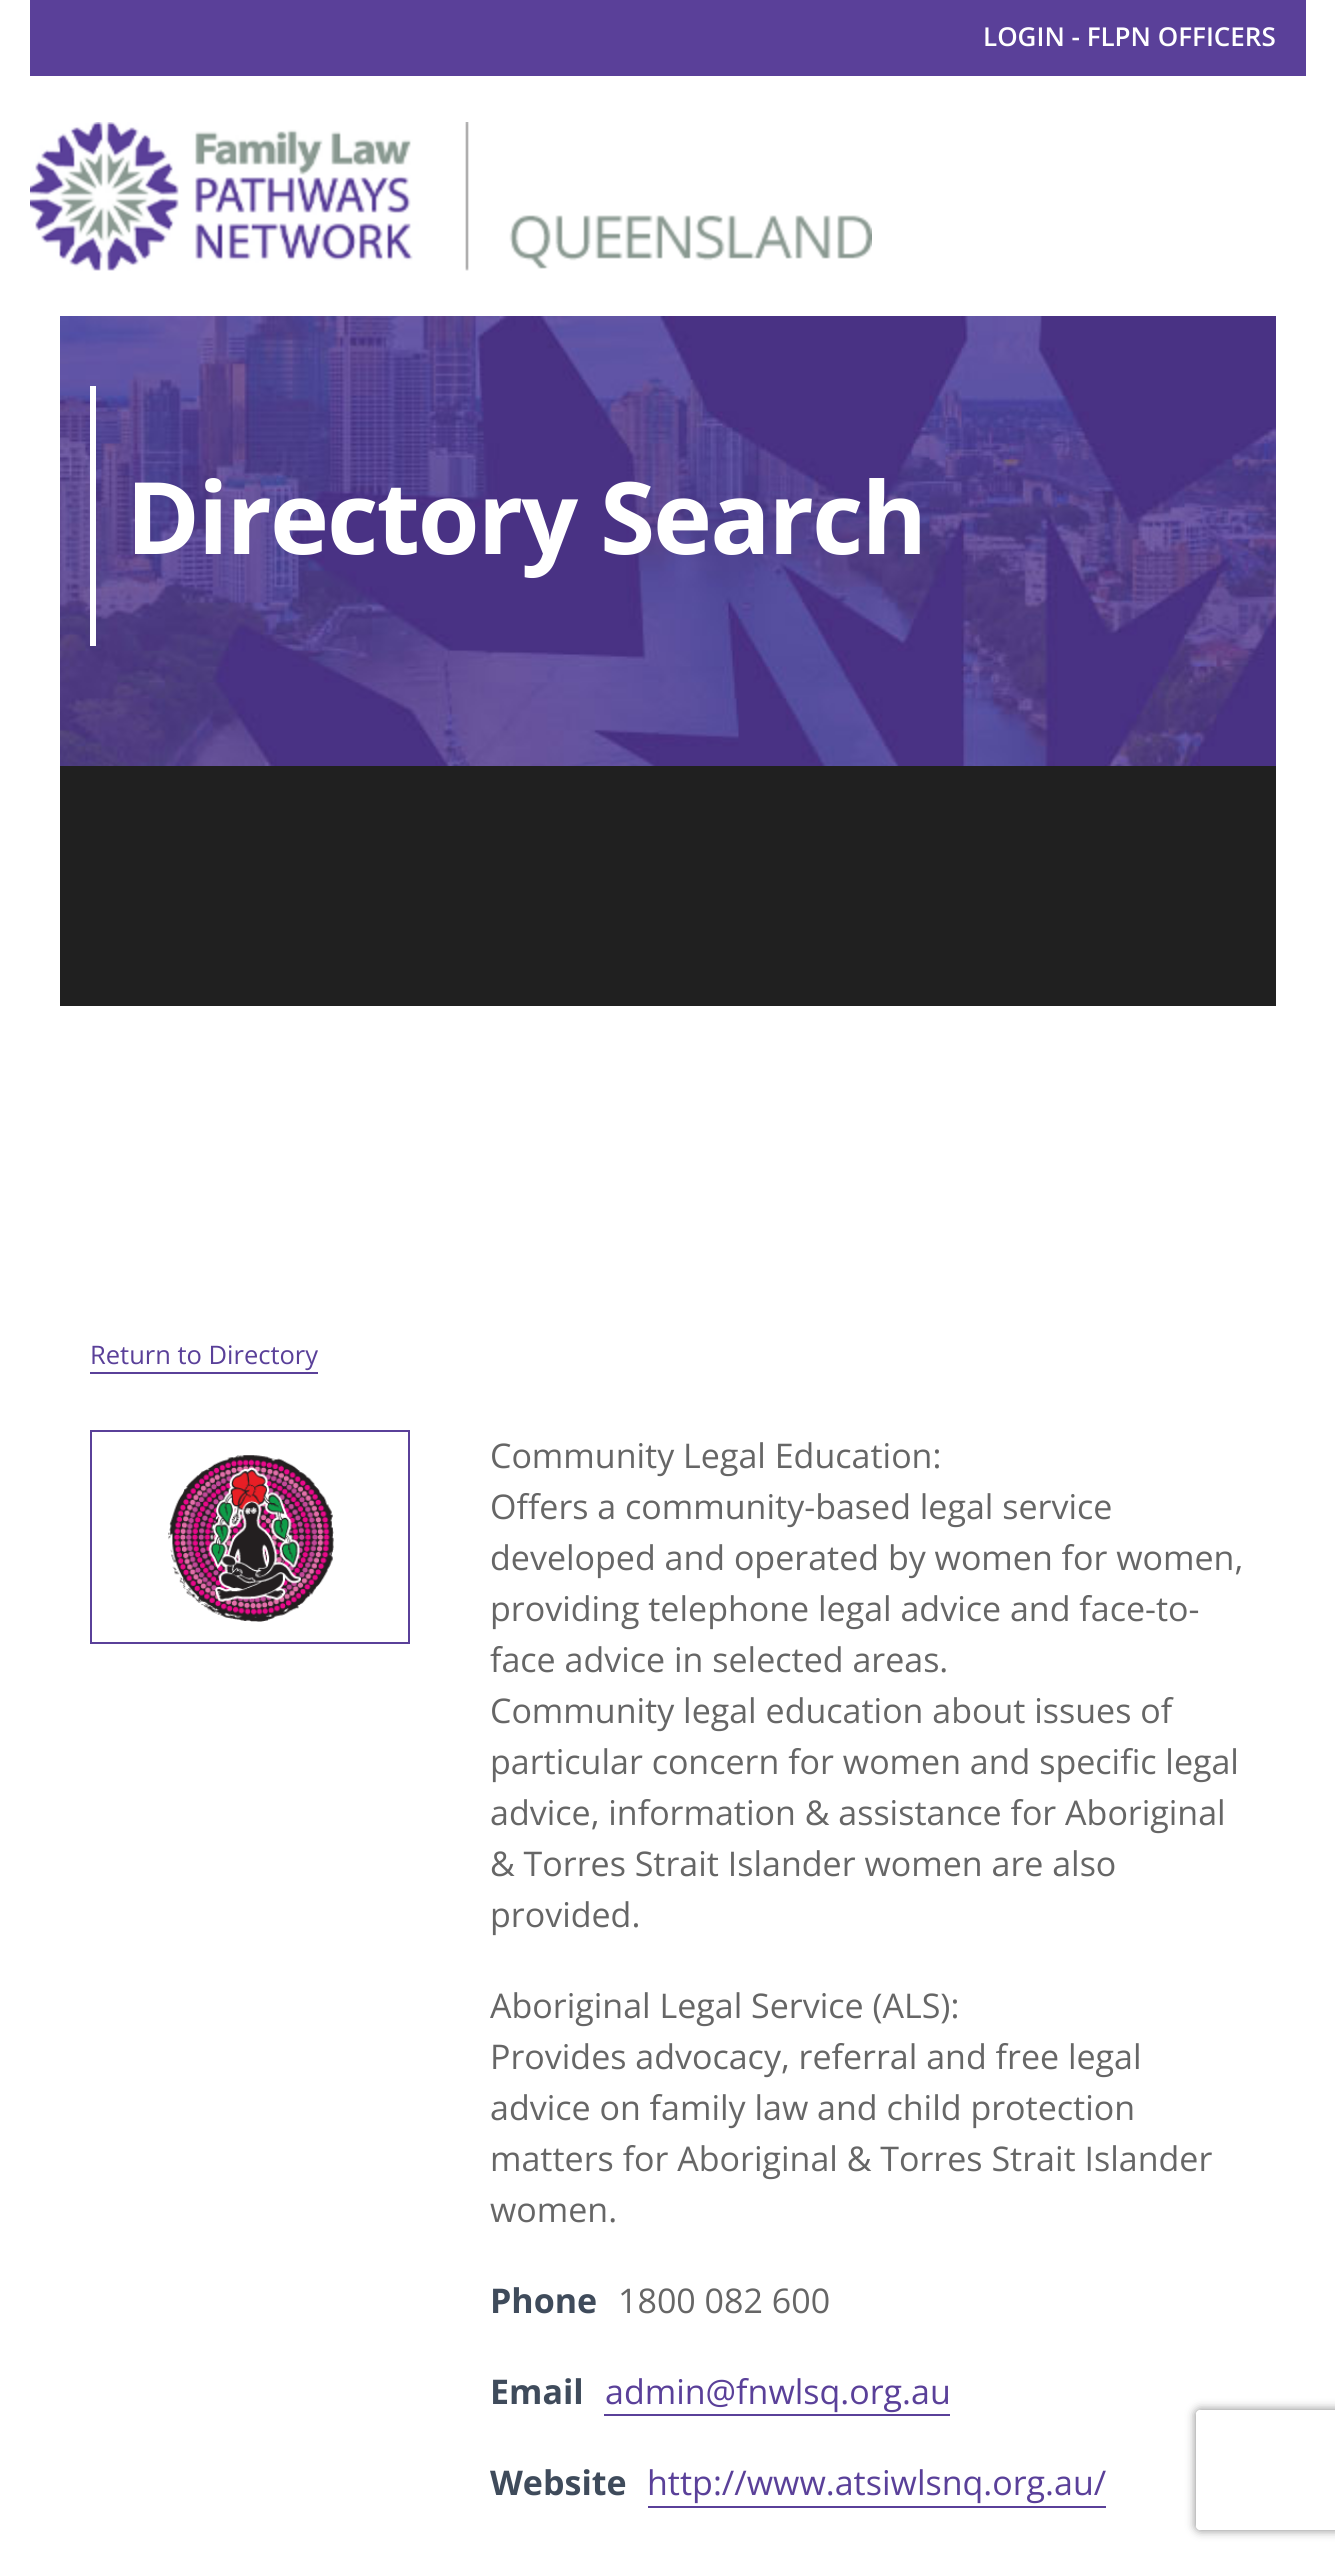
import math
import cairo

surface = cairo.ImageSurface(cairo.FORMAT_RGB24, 1335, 2558)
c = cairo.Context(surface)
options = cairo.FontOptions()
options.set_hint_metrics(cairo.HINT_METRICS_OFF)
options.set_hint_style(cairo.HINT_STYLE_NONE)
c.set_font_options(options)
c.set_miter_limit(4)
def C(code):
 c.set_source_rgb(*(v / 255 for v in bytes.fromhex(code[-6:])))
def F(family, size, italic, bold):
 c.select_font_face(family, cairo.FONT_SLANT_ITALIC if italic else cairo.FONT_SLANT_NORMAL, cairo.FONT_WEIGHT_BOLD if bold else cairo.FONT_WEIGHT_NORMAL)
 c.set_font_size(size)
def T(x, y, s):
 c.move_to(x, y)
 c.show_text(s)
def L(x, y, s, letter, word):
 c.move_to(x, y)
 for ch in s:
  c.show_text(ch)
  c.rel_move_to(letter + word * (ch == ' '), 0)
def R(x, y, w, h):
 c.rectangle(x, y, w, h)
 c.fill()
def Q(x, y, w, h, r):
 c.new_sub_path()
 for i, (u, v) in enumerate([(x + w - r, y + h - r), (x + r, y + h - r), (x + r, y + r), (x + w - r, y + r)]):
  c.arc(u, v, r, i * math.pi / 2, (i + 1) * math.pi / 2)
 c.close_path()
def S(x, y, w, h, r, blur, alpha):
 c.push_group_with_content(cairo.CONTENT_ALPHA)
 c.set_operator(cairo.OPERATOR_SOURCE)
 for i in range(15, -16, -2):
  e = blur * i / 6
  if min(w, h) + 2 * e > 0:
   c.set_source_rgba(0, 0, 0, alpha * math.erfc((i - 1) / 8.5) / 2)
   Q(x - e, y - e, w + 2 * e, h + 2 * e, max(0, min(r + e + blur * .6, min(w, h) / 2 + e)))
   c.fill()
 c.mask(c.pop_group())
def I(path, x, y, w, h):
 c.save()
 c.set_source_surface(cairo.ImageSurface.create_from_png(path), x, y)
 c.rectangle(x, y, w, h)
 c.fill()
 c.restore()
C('ffffff')
c.paint()
C('5a4099')
R(30,0,1276,76)
F('Open Sans SemiBold',26,0,0)
C('ffffff')
T(983,46,'LOGIN - FLPN OFFICERS')
I('1.png',30,122,842,149)
I('2.png',60,316,1216,450)
R(90,386,6,260)
F('Open Sans',100,0,1)
L(126,554,'Directory Search',-2,0)
C('202020')
R(60,766,1216,240)
F('Open Sans',25.5,0,0)
C('5a4099')
T(90,1364,'Return to Directory')
R(90,1372,228,2)
c.rectangle(91,1431,318,212)
c.stroke()
I('3.png',168,1455,166,167)
F('Open Sans',34,0,0)
C('666666')
T(490,1468,'Community Legal Education:')
T(490,1519,'Offers a community-based legal service')
T(490,1570,'developed and operated by women for women,')
T(490,1621,'providing telephone legal advice and face-to-')
T(490,1672,'face advice in selected areas.')
T(490,1723,'Community legal education about issues of')
T(490,1774,'particular concern for women and specific legal')
T(490,1825,'advice, information & assistance for Aboriginal')
T(490,1876,'& Torres Strait Islander women are also')
T(490,1927,'provided.')
T(490,2018,'Aboriginal Legal Service (ALS):')
T(490,2069,'Provides advocacy, referral and free legal')
T(490,2120,'advice on family law and child protection')
T(490,2171,'matters for Aboriginal & Torres Strait Islander')
T(490,2222,'women.')
F('Open Sans',34,0,1)
C('3f4b5b')
T(490,2313,'Phone')
F('Open Sans',34,0,0)
C('666666')
T(618,2313,'1800 082 600')
F('Open Sans',34,0,1)
C('3f4b5b')
T(490,2404,'Email')
F('Open Sans',34,0,0)
C('5a4099')
T(605,2404,'admin@fnwlsq.org.au')
R(604,2414,346,2)
F('Open Sans',34,0,1)
C('3f4b5b')
T(490,2495,'Website')
F('Open Sans',34,0,0)
C('5a4099')
T(647,2495,'http://www.atsiwlsnq.org.au/')
R(648,2506,458,2)
c.save()
c.set_fill_rule(cairo.FILL_RULE_EVEN_ODD)
c.new_path()
c.move_to(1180,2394)
c.line_to(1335,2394)
c.line_to(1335,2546)
c.line_to(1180,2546)
c.close_path()
c.move_to(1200,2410)
c.line_to(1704,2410)
c.curve_to(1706,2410,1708,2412,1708,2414)
c.line_to(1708,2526)
c.curve_to(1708,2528,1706,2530,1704,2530)
c.line_to(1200,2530)
c.curve_to(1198,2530,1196,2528,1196,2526)
c.line_to(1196,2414)
c.curve_to(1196,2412,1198,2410,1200,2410)
c.close_path()
c.clip()
C('808080')
S(1196,2410,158,120,4,5,1)
c.restore()
surface.write_to_png('o.png')
